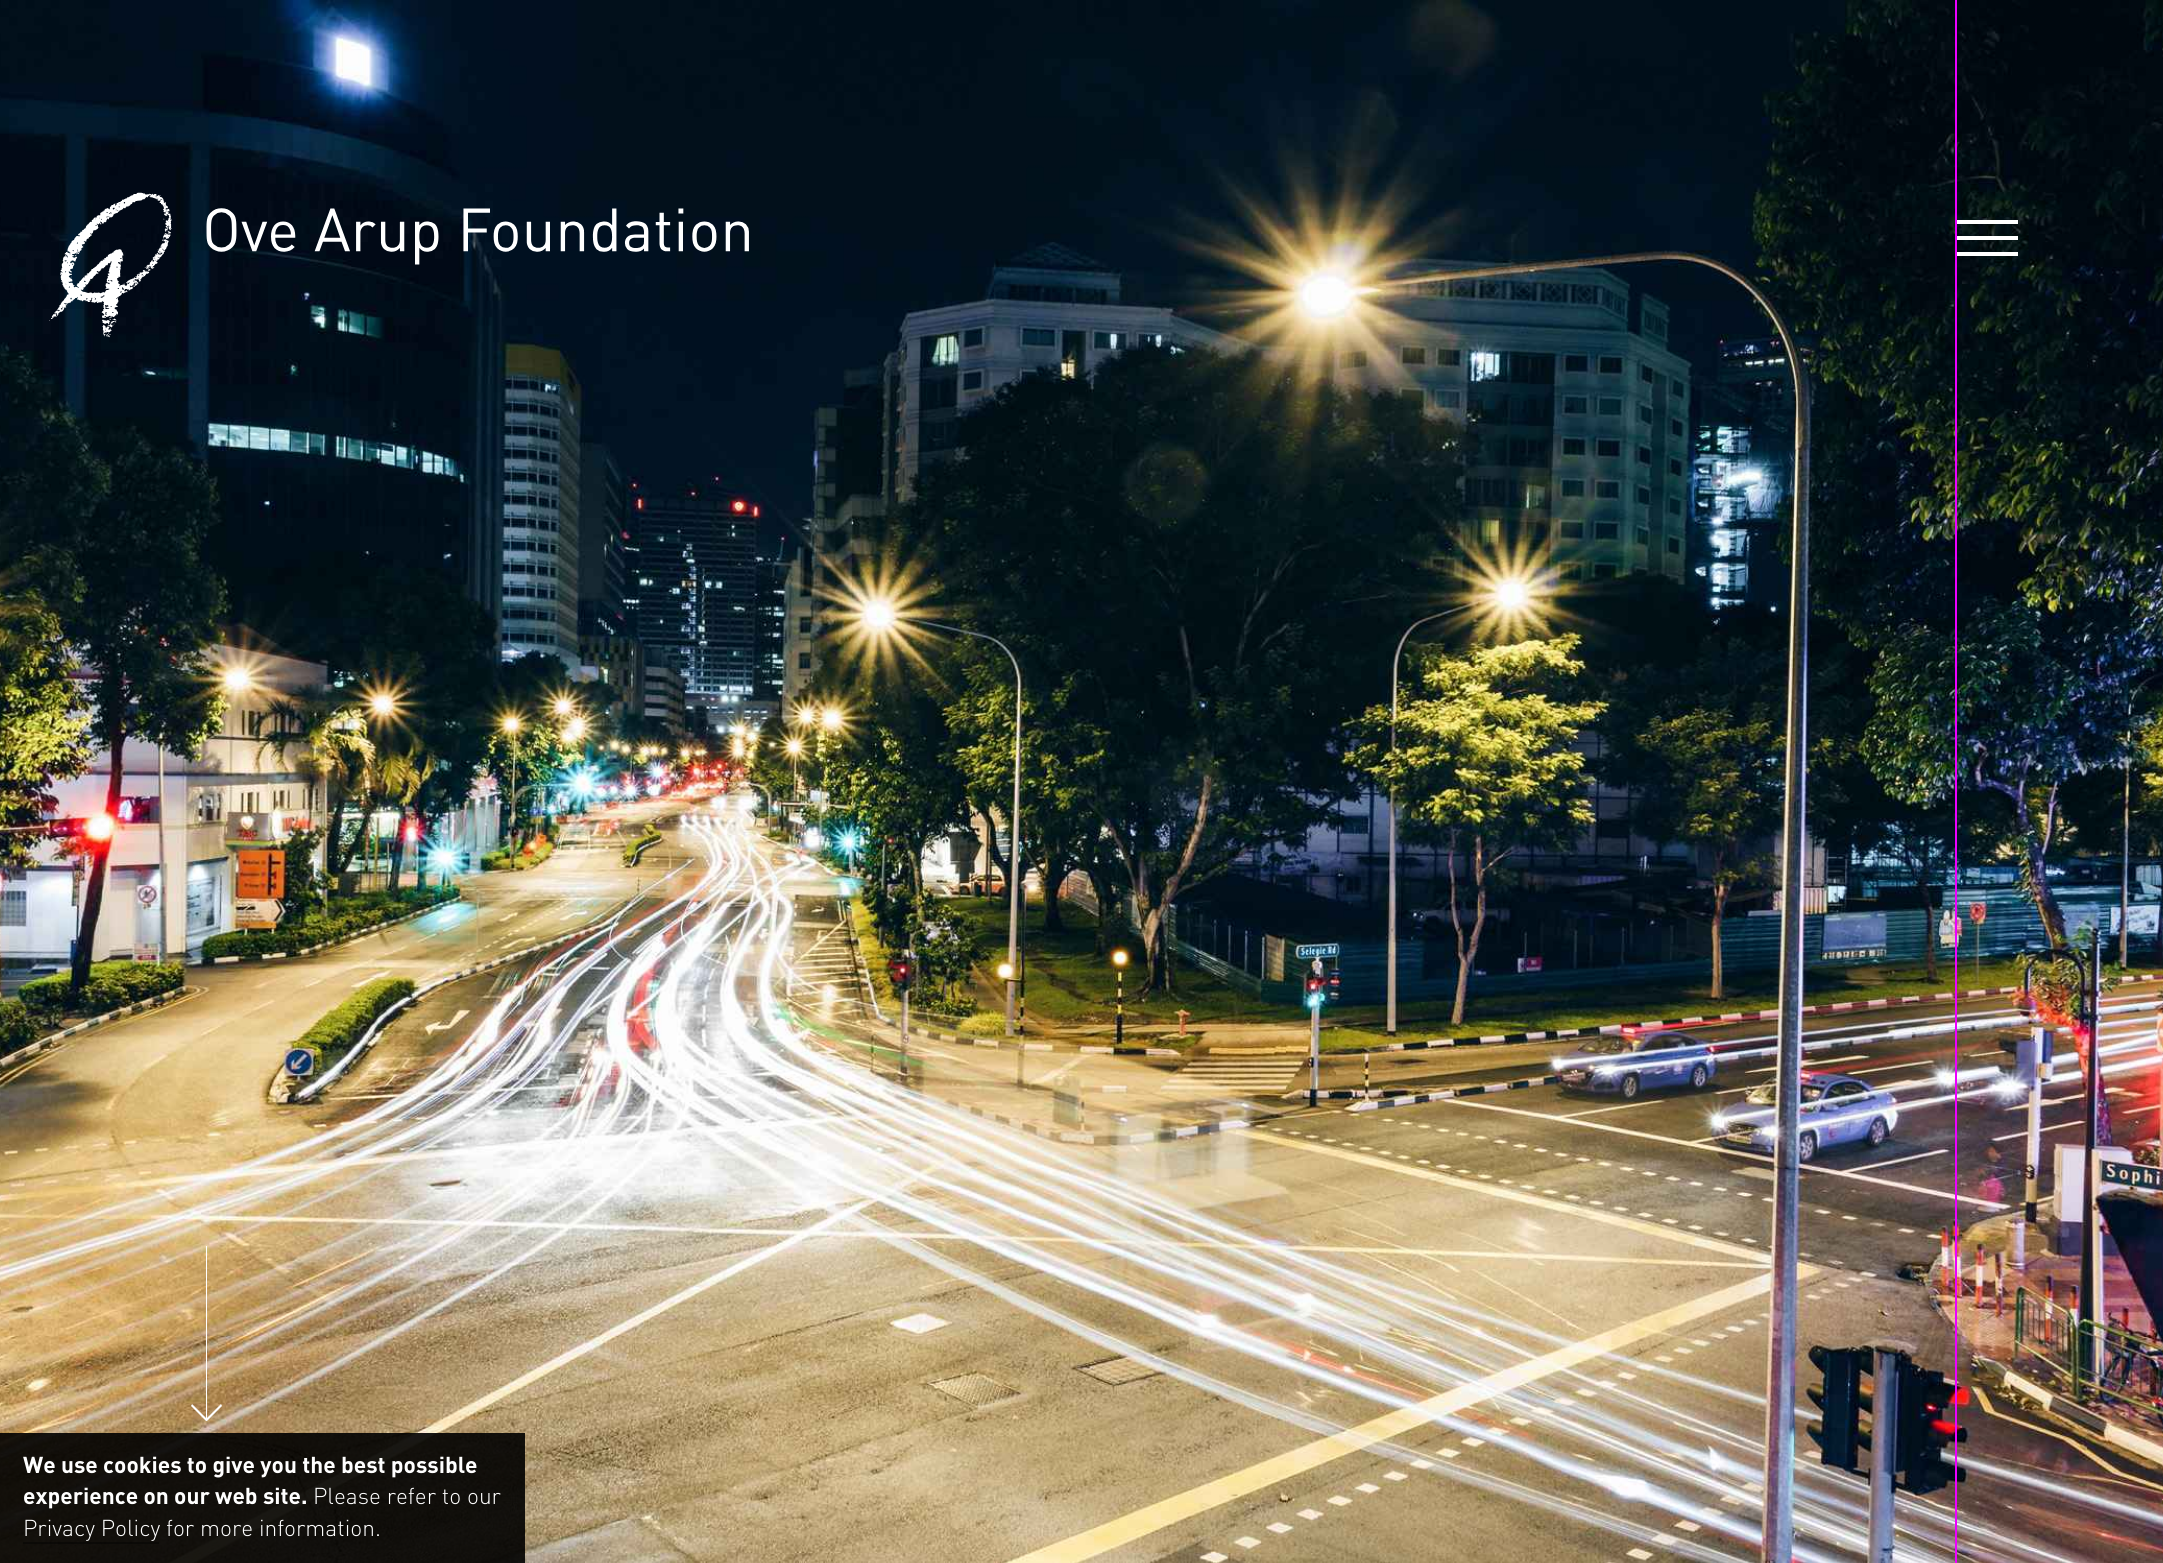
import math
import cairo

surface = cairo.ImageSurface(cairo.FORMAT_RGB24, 2163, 1563)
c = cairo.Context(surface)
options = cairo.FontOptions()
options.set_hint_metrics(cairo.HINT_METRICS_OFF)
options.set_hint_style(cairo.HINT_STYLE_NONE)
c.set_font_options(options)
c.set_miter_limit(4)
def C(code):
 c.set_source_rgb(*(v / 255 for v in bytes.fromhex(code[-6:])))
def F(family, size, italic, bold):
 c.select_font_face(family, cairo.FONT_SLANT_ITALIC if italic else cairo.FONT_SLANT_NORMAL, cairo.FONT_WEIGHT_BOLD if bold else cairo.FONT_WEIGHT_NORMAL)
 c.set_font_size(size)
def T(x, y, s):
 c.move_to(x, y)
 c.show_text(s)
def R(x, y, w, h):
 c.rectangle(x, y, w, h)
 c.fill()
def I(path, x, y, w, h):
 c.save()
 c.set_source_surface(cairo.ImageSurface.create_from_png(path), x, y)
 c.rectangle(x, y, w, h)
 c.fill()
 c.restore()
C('ffffff')
c.paint()
I('1.png',0,0,2163,1563)
I('2.png',49,192,700,146)
C('ec00ff')
R(1955,0,2,1563)
C('ffffff')
R(1957,236,61,4)
R(1957,220,61,4)
R(1957,252,61,4)
c.new_path()
c.move_to(221,1404)
c.line_to(207,1418)
c.line_to(207,1246)
c.line_to(206,1246)
c.line_to(206,1418)
c.line_to(192,1404)
c.line_to(191,1406)
c.line_to(206,1421)
c.line_to(207,1421)
c.line_to(222,1406)
c.close_path()
c.fill()
c.set_source_rgba(0,0,0,0.9)
R(0,1433,525,130)
F('DIN',22.75,0,1)
C('ffffff')
T(23,1473,'We use cookies to give you the best possible')
T(23,1504,'experience on our web site.')
F('DIN Light',22.75,0,0)
T(313,1504,'Please refer to our')
T(23,1536,'Privacy Policy for more information.')
c.set_source_rgba(0,0,0,0.4)
R(23,1542,136,2)
surface.write_to_png('o.png')
